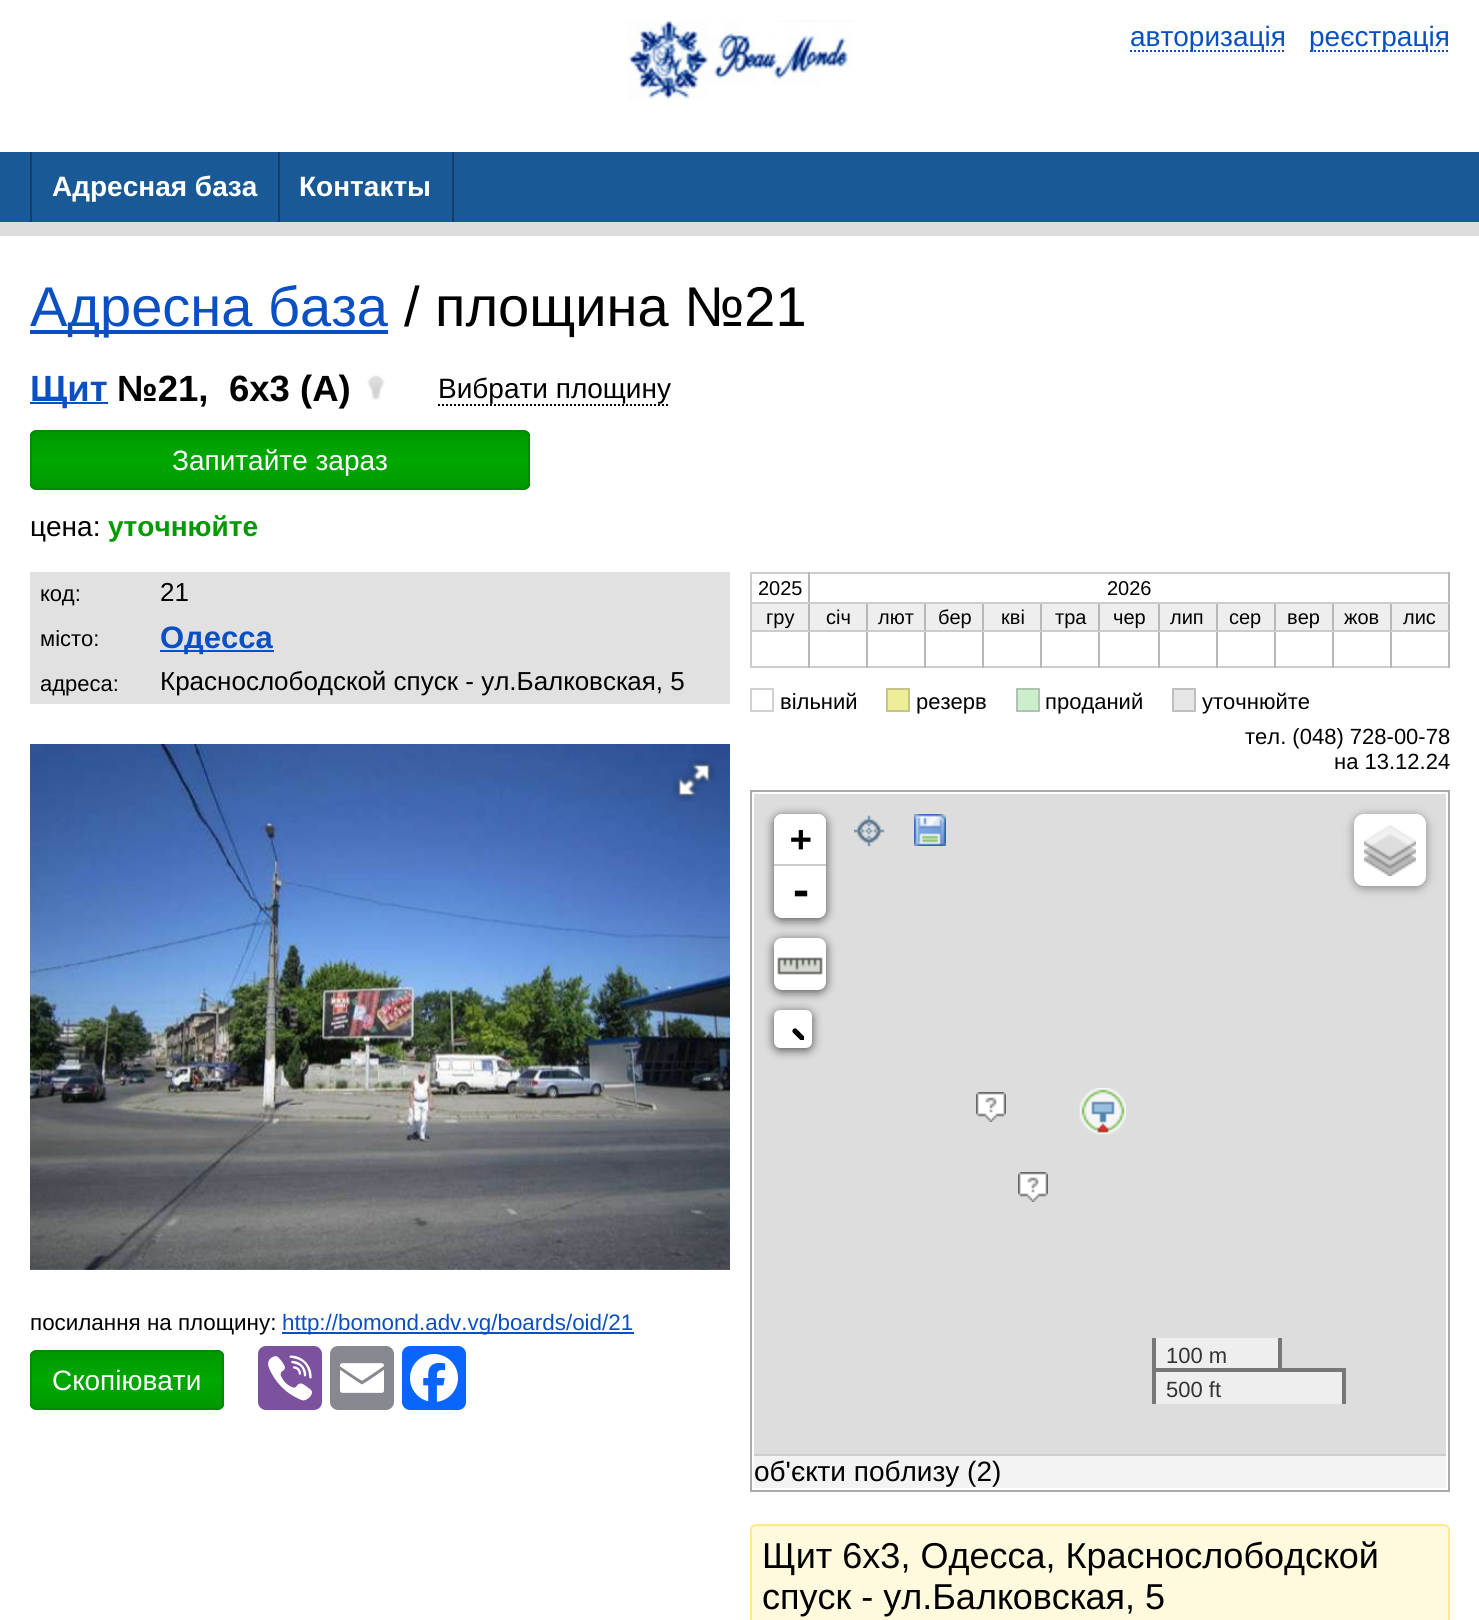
import math
import cairo

surface = cairo.ImageSurface(cairo.FORMAT_RGB24, 1479, 1620)
c = cairo.Context(surface)
options = cairo.FontOptions()
options.set_hint_metrics(cairo.HINT_METRICS_OFF)
options.set_hint_style(cairo.HINT_STYLE_NONE)
c.set_font_options(options)
c.set_miter_limit(4)
def C(code):
 c.set_source_rgb(*(v / 255 for v in bytes.fromhex(code[-6:])))
def F(family, size, italic, bold):
 c.select_font_face(family, cairo.FONT_SLANT_ITALIC if italic else cairo.FONT_SLANT_NORMAL, cairo.FONT_WEIGHT_BOLD if bold else cairo.FONT_WEIGHT_NORMAL)
 c.set_font_size(size)
def T(x, y, s):
 c.move_to(x, y)
 c.show_text(s)
def R(x, y, w, h):
 c.rectangle(x, y, w, h)
 c.fill()
def Q(x, y, w, h, r):
 c.new_sub_path()
 for i, (u, v) in enumerate([(x + w - r, y + h - r), (x + r, y + h - r), (x + r, y + r), (x + w - r, y + r)]):
  c.arc(u, v, r, i * math.pi / 2, (i + 1) * math.pi / 2)
 c.close_path()
def S(x, y, w, h, r, blur, alpha):
 c.push_group_with_content(cairo.CONTENT_ALPHA)
 c.set_operator(cairo.OPERATOR_SOURCE)
 for i in range(15, -16, -2):
  e = blur * i / 6
  if min(w, h) + 2 * e > 0:
   c.set_source_rgba(0, 0, 0, alpha * math.erfc((i - 1) / 8.5) / 2)
   Q(x - e, y - e, w + 2 * e, h + 2 * e, max(0, min(r + e + blur * .6, min(w, h) / 2 + e)))
   c.fill()
 c.mask(c.pop_group())
def I(path, x, y, w, h):
 c.save()
 c.set_source_surface(cairo.ImageSurface.create_from_png(path), x, y)
 c.rectangle(x, y, w, h)
 c.fill()
 c.restore()
C('ffffff')
c.paint()
I('1.png',627,20,226,80)
c.new_path()
c.move_to(1130,51)
c.line_to(1286,51)
C('0b50c3')
c.set_dash([2,2])
c.stroke()
F('Liberation Sans',28,0,0)
T(1130,46,'авторизація')
c.new_path()
c.move_to(1310,51)
c.line_to(1450,51)
c.stroke()
T(1309,46,'реєстрація')
C('195995')
R(0,152,1479,70)
C('dddddd')
R(0,222,1479,14)
C('123f69')
R(30,152,2,70)
F('Liberation Sans',28,0,1)
C('ffffff')
T(52,196,'Адресная база')
C('123f69')
R(452,152,2,70)
R(278,152,2,70)
C('ffffff')
T(299,196,'Контакты')
C('0b50c3')
R(30,330,358,4)
F('Liberation Sans',56,0,0)
T(30,326,'Адресна база')
C('000000')
T(404,326,'/ площина №21')
C('0b50c3')
R(30,402,78,2)
F('Liberation Sans',36.5,0,1)
T(30,401,'Щит')
C('000000')
T(117,401,'№21,')
T(229,401,'6x3 (A)')
I('2.png',367,375,18,25)
F('Liberation Sans',28,0,0)
T(438,398,'Вибрати площину')
c.new_path()
c.move_to(438,405)
c.line_to(670,405)
c.stroke()
c.save()
Q(30,430,500,60,6)
c.clip()
gradient = cairo.LinearGradient(280,432,280,488)
gradient.add_color_stop_rgba(0,0,0.6,0,1)
gradient.add_color_stop_rgba(.5,0,0.659,0,1)
gradient.add_color_stop_rgba(1,0,0.6,0,1)
c.set_source(gradient)
R(30,432,500,56)
c.restore()
Q(31,431,498,58,5)
C('008a00')
c.set_dash([])
c.stroke()
C('ffffff')
T(172,470,'Запитайте зараз')
C('000000')
T(30,536,'цена:')
F('Liberation Sans',28,0,1)
C('009900')
T(108,536,'уточнюйте')
C('e1e1e1')
R(30,572,700,132)
F('Liberation Sans',22,0,0)
C('000000')
T(40,601,'код:')
F('Liberation Sans',26,0,0)
T(160,601,'21')
F('Liberation Sans',22,0,0)
T(40,646,'місто:')
C('0b50c3')
R(160,650,114,2)
F('Liberation Sans',31,0,1)
T(160,648,'Одесса')
F('Liberation Sans',22,0,0)
C('000000')
T(40,691,'адреса:')
F('Liberation Sans',26,0,0)
T(160,690,'Краснослободской спуск - ул.Балковская, 5')
I('3.png',30,744,700,526)
I('4.png',672,758,44,44)
F('Liberation Sans',22.4,0,0)
T(30,1330,'посилання на площину:')
C('0b50c3')
R(282,1332,352,2)
T(282,1330,'http://bomond.adv.vg/boards/oid/21')
c.save()
Q(30,1350,194,60,6)
c.clip()
gradient = cairo.LinearGradient(127,1352,127,1408)
gradient.add_color_stop_rgba(0,0,0.6,0,1)
gradient.add_color_stop_rgba(.5,0,0.659,0,1)
gradient.add_color_stop_rgba(1,0,0.6,0,1)
c.set_source(gradient)
R(30,1352,194,56)
c.restore()
Q(31,1351,192,58,5)
C('008a00')
c.stroke()
F('Liberation Sans',28,0,0)
C('ffffff')
T(52,1390,'Скопіювати')
C('7c529e')
Q(258,1346,64,64,8)
c.fill()
I('5.png',268,1355,44,46)
C('888990')
Q(330,1346,64,64,8)
c.fill()
I('6.png',340,1363,44,30)
C('0866ff')
Q(402,1346,64,64,8)
c.fill()
I('7.png',410,1354,48,48)
C('cccccc')
R(750,572,700,2)
C('b8b8b8')
R(1448,572,2,60)
C('cccccc')
R(750,666,700,2)
R(750,572,2,96)
C('b8b8b8')
R(1390,630,2,38)
R(1448,630,2,38)
C('cccccc')
R(1390,630,60,2)
C('b8b8b8')
R(1390,602,2,30)
R(1332,630,2,38)
C('cccccc')
R(1332,630,60,2)
C('b8b8b8')
R(1332,602,2,30)
R(1274,630,2,38)
C('cccccc')
R(1274,630,60,2)
C('b8b8b8')
R(1274,602,2,30)
R(1216,630,2,38)
C('cccccc')
R(1216,630,60,2)
C('b8b8b8')
R(1216,602,2,30)
R(1158,630,2,38)
C('cccccc')
R(1158,630,60,2)
C('b8b8b8')
R(1158,602,2,30)
R(1098,630,2,38)
C('cccccc')
R(1098,630,62,2)
C('b8b8b8')
R(1098,602,2,30)
R(1040,630,2,38)
C('cccccc')
R(1040,630,60,2)
C('b8b8b8')
R(1040,602,2,30)
R(982,630,2,38)
C('cccccc')
R(982,630,60,2)
C('b8b8b8')
R(982,602,2,30)
R(924,630,2,38)
C('cccccc')
R(924,630,60,2)
C('b8b8b8')
R(924,602,2,30)
R(866,630,2,38)
C('cccccc')
R(866,630,60,2)
C('b8b8b8')
R(866,602,2,30)
R(808,630,2,38)
C('cccccc')
R(808,630,60,2)
C('b8b8b8')
R(808,602,2,30)
C('cccccc')
R(808,602,642,2)
C('b8b8b8')
R(808,572,2,32)
C('cccccc')
R(750,602,60,2)
F('Liberation Sans',20,0,0)
C('000000')
T(758,595,'2025')
T(1107,595,'2026')
C('eeeeee')
R(752,604,56,26)
C('cccccc')
R(750,630,60,2)
C('000000')
T(766,624,'гру')
C('eeeeee')
R(810,604,56,26)
C('000000')
T(826,624,'січ')
C('eeeeee')
R(868,604,56,26)
C('000000')
T(878,624,'лют')
C('eeeeee')
R(926,604,56,26)
C('000000')
T(938,624,'бер')
C('eeeeee')
R(984,604,56,26)
C('000000')
T(1001,624,'кві')
C('eeeeee')
R(1042,604,56,26)
C('000000')
T(1055,624,'тра')
C('eeeeee')
R(1100,604,58,26)
C('000000')
T(1113,624,'чер')
C('eeeeee')
R(1160,604,56,26)
C('000000')
T(1170,624,'лип')
C('eeeeee')
R(1218,604,56,26)
C('000000')
T(1229,624,'сер')
C('eeeeee')
R(1276,604,56,26)
C('000000')
T(1287,624,'вер')
C('eeeeee')
R(1334,604,56,26)
C('000000')
T(1344,624,'жов')
C('eeeeee')
R(1392,604,56,26)
C('000000')
T(1403,624,'лис')
c.rectangle(751,689,22,22)
C('d1d1d1')
c.stroke()
F('Liberation Sans',22,0,0)
C('000000')
T(780,709,'вільний')
C('eeee99')
c.rectangle(887,689,22,22)
c.fill_preserve()
C('c5c58a')
c.stroke()
C('000000')
T(916,709,'резерв')
C('cceecc')
c.rectangle(1017,689,22,22)
c.fill_preserve()
C('adc5ad')
c.stroke()
C('000000')
T(1045,709,'проданий')
C('e6e6e6')
c.rectangle(1173,689,22,22)
c.fill_preserve()
C('c0c0c0')
c.stroke()
C('000000')
T(1202,709,'уточнюйте')
T(1245,744,'тел. (048) 728-00-78')
T(1334,769,'на 13.12.24')
c.rectangle(751,791,698,700)
C('aaaaaa')
c.stroke()
C('dddddd')
R(754,794,692,660)
C('eeeeee')
R(1156,1372,186,32)
C('000000')
S(774,816,52,104,8,5,.65)
C('ffffff')
c.new_path()
c.move_to(782,814)
c.line_to(818,814)
c.curve_to(822.5,814,826,817.5,826,822)
c.line_to(826,866)
c.line_to(774,866)
c.line_to(774,822)
c.curve_to(774,817.5,777.5,814,782,814)
c.close_path()
c.fill()
C('cccccc')
R(774,864,52,2)
F('DejaVu Sans Mono',36,0,1)
C('000000')
T(790,851,'+')
C('ffffff')
c.new_path()
c.move_to(774,866)
c.line_to(826,866)
c.line_to(826,910)
c.curve_to(826,914.5,822.5,918,818,918)
c.line_to(782,918)
c.curve_to(777.5,918,774,914.5,774,910)
c.close_path()
c.fill()
F('DejaVu Sans Mono',40,0,1)
C('000000')
T(789,905,'-')
I('8.png',854,815,31,31)
I('9.png',914,814,32,32)
C('000000')
S(774,940,52,52,8,5,.65)
C('ffffff')
Q(774,938,52,52,8)
c.fill()
I('10.png',777,957,46,18)
C('000000')
S(774,1012,38,38,6,5,.65)
Q(778,1014,30,30,2)
C('ffffff')
c.set_line_width(8)
c.stroke()
R(782,1018,22,22)
c.save()
c.rectangle(782,1018,22,22)
c.clip()
c.new_path()
c.move_to(809,1045)
c.line_to(795,1031)
C('000000')
c.set_line_width(5.2)
c.set_line_cap(cairo.LINE_CAP_ROUND)
c.stroke()
c.restore()
C('000000')
S(1354,816,72,72,10,5,.4)
C('ffffff')
Q(1354,814,72,72,10)
c.fill()
I('11.png',1364,825,52,51)
C('eeeeee')
R(1156,1338,122,30)
C('777777')
R(1278,1338,4,34)
R(1152,1338,4,34)
F('Liberation Sans',22,0,0)
C('333333')
T(1166,1363,'100 m')
C('777777')
R(1152,1368,194,4)
R(1342,1368,4,36)
R(1152,1368,4,36)
C('333333')
T(1166,1397,'500 ft')
I('12.png',976,1092,30,30)
I('13.png',1079,1088,47,47)
I('14.png',1091,1101,24,22)
I('15.png',1097,1123,12,10)
I('12.png',1018,1172,30,30)
C('cccccc')
R(754,1454,692,2)
C('f3f3f3')
R(754,1456,692,32)
F('Liberation Sans',28,0,0)
C('000000')
T(754,1481,'об\'єкти поблизу (2)')
C('fff9dd')
Q(751,1525,698,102,5)
c.fill_preserve()
C('fbec88')
c.set_line_width(2)
c.stroke()
F('Liberation Sans',36,0,0)
C('000000')
T(762,1568,'Щит 6x3, Одесса, Краснослободской')
T(762,1609,'спуск - ул.Балковская, 5')
surface.write_to_png('o.png')
